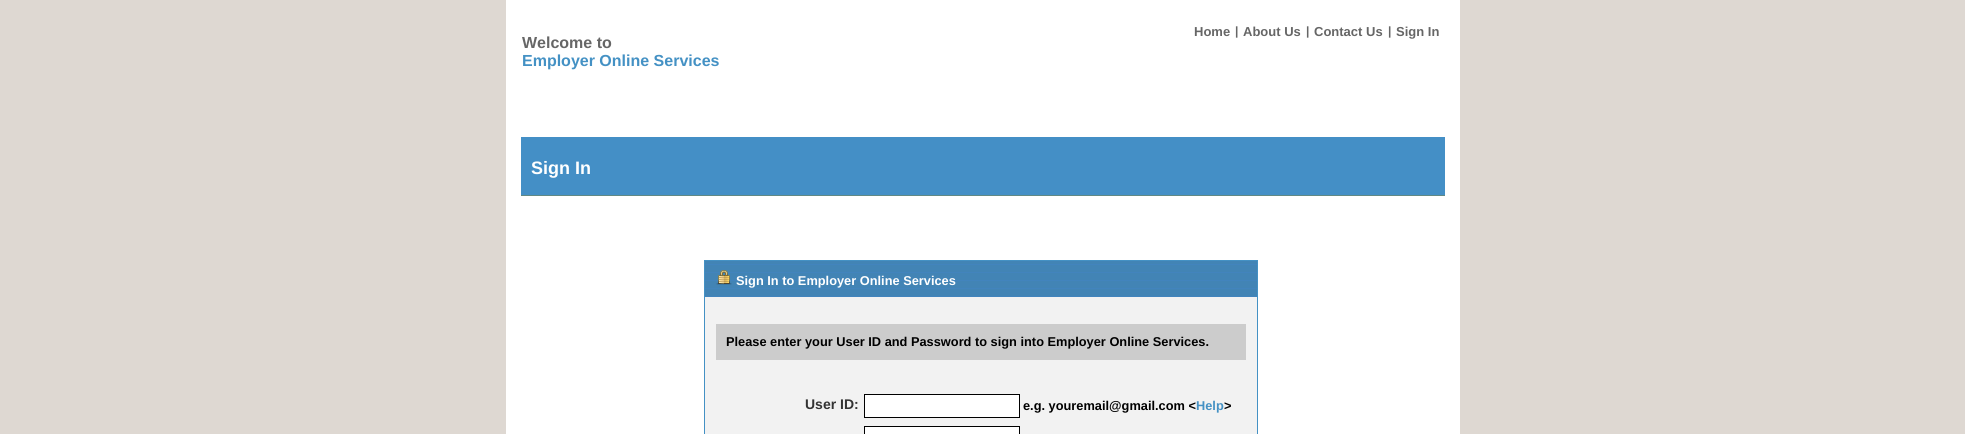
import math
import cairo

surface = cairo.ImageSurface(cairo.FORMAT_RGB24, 1965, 434)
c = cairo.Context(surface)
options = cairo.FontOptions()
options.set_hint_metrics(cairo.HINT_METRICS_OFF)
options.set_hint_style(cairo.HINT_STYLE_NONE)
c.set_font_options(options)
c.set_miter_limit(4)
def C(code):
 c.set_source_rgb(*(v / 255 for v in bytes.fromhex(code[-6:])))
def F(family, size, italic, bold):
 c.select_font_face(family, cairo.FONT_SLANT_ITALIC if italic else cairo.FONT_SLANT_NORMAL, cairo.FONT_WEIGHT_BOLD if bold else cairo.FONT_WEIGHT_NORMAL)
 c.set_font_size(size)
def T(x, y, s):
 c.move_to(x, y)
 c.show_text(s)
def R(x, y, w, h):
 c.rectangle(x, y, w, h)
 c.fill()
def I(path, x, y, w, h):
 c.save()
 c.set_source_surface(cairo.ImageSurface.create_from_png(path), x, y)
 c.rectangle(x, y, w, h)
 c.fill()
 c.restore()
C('ded8d2')
c.paint()
C('ffffff')
R(506,0,954,434)
F('Liberation Sans',13,0,1)
C('666666')
T(1194,36,'Home')
F('Liberation Sans',12,0,1)
T(1235,35,'|')
F('Liberation Sans',13,0,1)
T(1243,36,'About Us')
F('Liberation Sans',12,0,1)
T(1306,35,'|')
F('Liberation Sans',13,0,1)
T(1314,36,'Contact Us')
F('Liberation Sans',12,0,1)
T(1388,35,'|')
F('Liberation Sans',13,0,1)
T(1396,36,'Sign In')
F('Liberation Sans',16,0,1)
T(522,48,'Welcome to')
C('4491c4')
T(522,66,'Employer Online Services')
C('628984')
R(521,195,924,1)
C('448fc6')
R(521,137,924,58)
F('Liberation Sans',18,0,1)
C('ffffff')
T(531,174,'Sign In')
C('f2f2f2')
R(705,297,552,137)
I('1.png',705,261,552,36)
c.rectangle(704.5,260.5,553,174)
C('4491c4')
c.set_line_width(1)
c.stroke()
I('2.png',716,270,16,15)
F('Liberation Sans',12.8,0,1)
C('ffffff')
T(736,285,'Sign In to Employer Online Services')
C('cccccc')
R(716,324,530,36)
C('000000')
T(726,346,'Please enter your User ID and Password to sign into Employer Online Services.')
F('Liberation Sans',14,0,1)
C('333333')
T(805,409,'User ID:')
C('ffffff')
c.rectangle(864.5,394.5,155,23)
c.fill_preserve()
C('000000')
c.stroke()
F('Liberation Sans',12.8,0,1)
T(1023,410,'e.g. youremail@gmail.com <')
C('4491c4')
T(1196,410,'Help')
C('000000')
T(1224,410,'>')
C('ffffff')
c.rectangle(864.5,426.5,155,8)
c.fill_preserve()
C('000000')
c.stroke()
surface.write_to_png('o.png')
